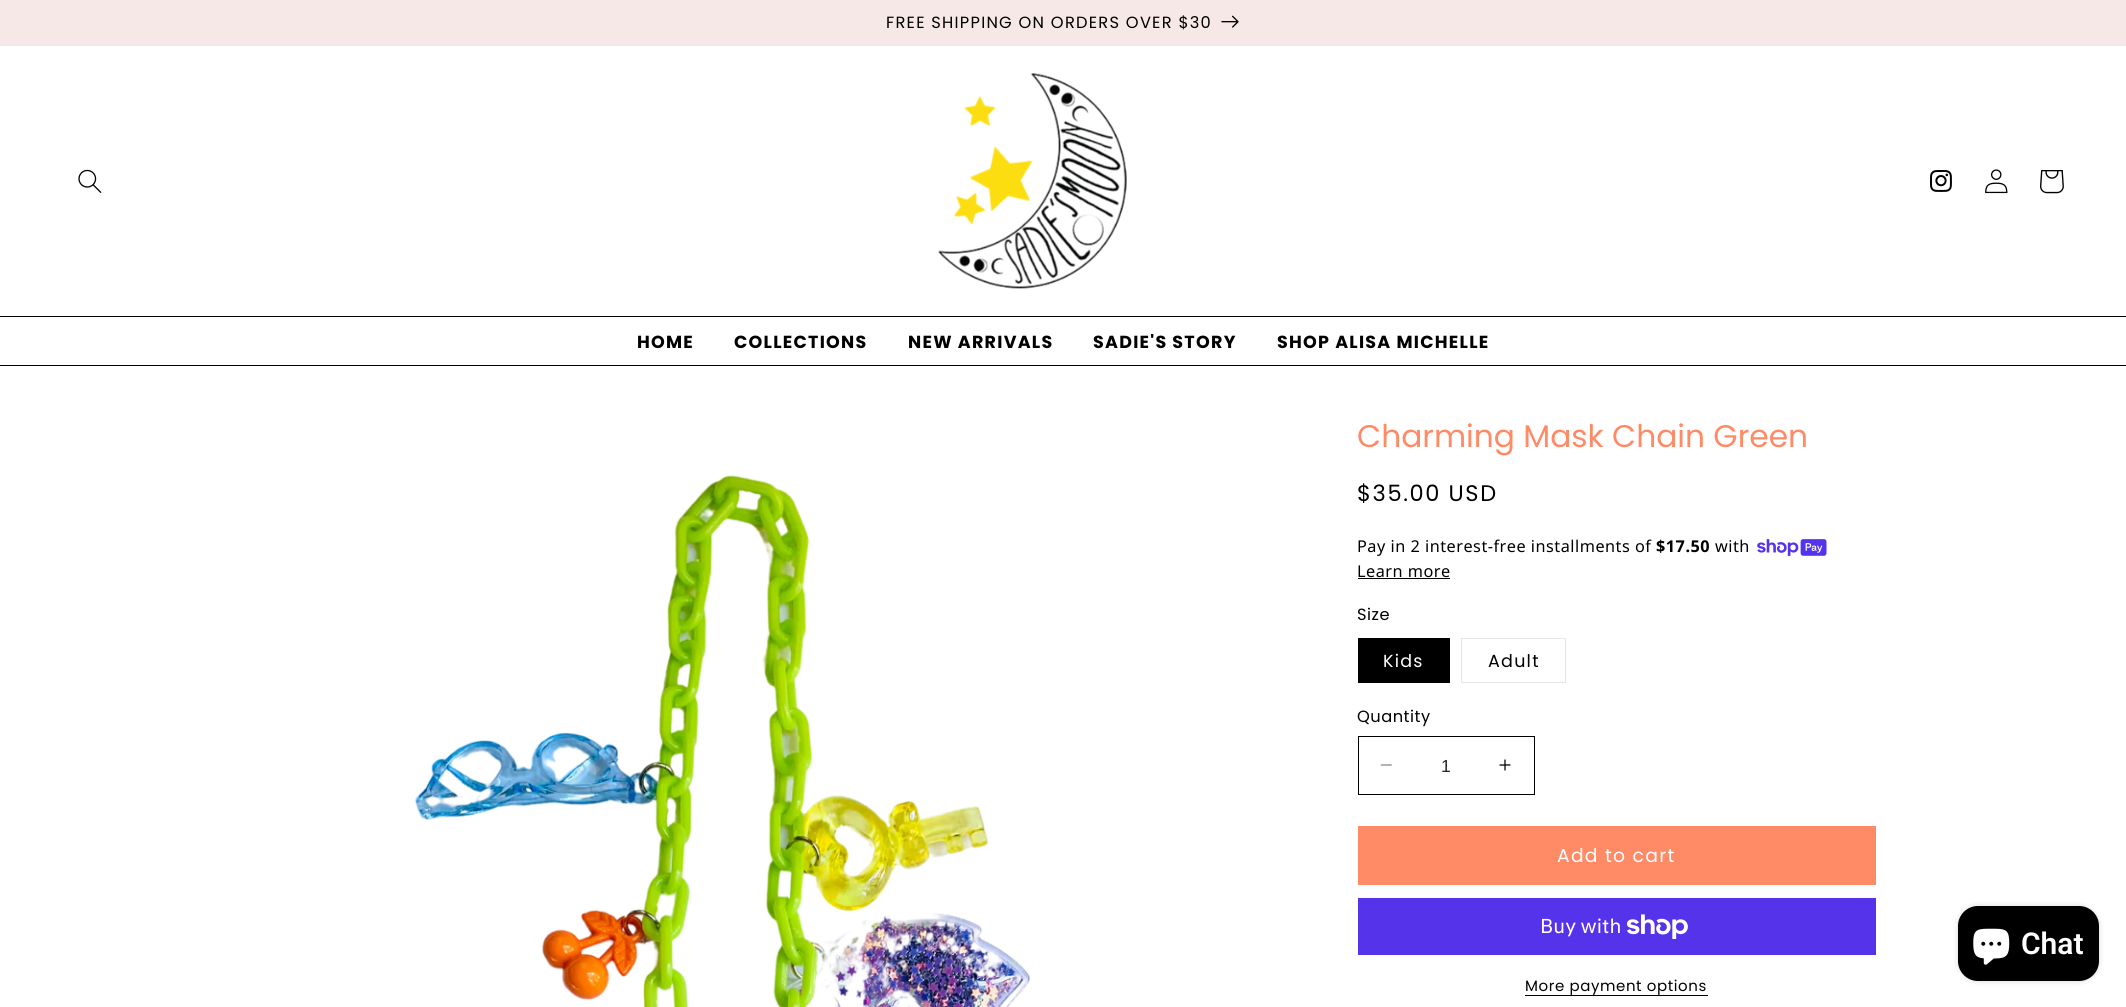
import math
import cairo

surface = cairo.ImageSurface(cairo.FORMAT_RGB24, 2126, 1007)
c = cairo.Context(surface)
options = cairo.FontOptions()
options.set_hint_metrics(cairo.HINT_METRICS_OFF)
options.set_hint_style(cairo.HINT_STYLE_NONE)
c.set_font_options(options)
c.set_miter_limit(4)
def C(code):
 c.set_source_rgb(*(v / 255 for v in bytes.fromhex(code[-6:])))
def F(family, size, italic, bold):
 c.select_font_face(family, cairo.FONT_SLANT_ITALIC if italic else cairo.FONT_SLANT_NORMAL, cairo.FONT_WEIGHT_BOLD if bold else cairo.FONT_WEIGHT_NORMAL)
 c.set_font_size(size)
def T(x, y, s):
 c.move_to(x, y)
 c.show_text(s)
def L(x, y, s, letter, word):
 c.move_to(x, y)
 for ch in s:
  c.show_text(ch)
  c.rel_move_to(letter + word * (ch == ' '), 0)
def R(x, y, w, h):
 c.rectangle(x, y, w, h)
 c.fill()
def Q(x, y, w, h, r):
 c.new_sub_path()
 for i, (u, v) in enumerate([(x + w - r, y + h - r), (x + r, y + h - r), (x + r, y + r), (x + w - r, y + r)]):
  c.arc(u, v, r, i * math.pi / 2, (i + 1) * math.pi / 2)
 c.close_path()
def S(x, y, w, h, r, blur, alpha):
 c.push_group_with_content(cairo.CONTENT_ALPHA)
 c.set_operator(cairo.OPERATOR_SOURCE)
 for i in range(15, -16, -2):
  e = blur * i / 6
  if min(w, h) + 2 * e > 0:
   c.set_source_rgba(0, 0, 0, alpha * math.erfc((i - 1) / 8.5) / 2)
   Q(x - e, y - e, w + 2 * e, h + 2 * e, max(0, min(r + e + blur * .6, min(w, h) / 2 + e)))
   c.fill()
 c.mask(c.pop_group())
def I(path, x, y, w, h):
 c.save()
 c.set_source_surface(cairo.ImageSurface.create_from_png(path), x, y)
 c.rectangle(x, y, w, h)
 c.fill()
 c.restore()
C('ffffff')
c.paint()
C('f7e8e8')
R(0,0,2126,46)
F('Poppins',16.25,0,0)
C('000000')
L(886,28,'FREE SHIPPING ON ORDERS OVER $30',1.25,0)
I('1.png',1221,15,18,13)
I('2.png',78,169,24,24)
I('3.png',938,73,189,216)
I('4.png',1930,170,22,22)
I('5.png',1985,169,23,25)
I('6.png',2040,170,24,24)
R(0,316,2126,1)
R(0,365,2126,1)
F('Poppins',17.5,0,1)
L(637,348,'HOME',1.25,0)
L(734,348,'COLLECTIONS',1.25,0)
L(908,348,'NEW ARRIVALS',1.25,0)
L(1093,348,'SADIE\'S STORY',1.25,0)
L(1277,348,'SHOP ALISA MICHELLE',1.25,0)
I('7.png',415,475,615,532)
F('Poppins',31.25,0,0)
C('ff8a66')
T(1357,447,'Charming Mask Chain Green')
F('Poppins',22.5,0,0)
C('000000')
L(1357,501,'$35.00 USD',1.6,0)
F('Noto Sans',16.25,0,0)
L(1357,552,'Pay in 2 interest-free installments of',.5,0)
F('Noto Sans',16.25,0,1)
L(1656,552,'$17.50',.5,0)
F('Noto Sans',16.25,0,0)
L(1715,552,'with',.5,0)
I('8.png',1757,539,70,17)
L(1357,577,'Learn more',.5,0)
R(1358,578,92,1)
F('Poppins',16.25,0,0)
L(1357,620,'Size',.5,0)
R(1358,638,92,45)
F('Poppins',17.5,0,0)
C('ffffff')
L(1383,667,'Kids',1.25,0)
c.rectangle(1461.5,638.5,104,44)
C('e6e6e6')
c.set_line_width(1)
c.stroke()
C('000000')
L(1488,667,'Adult',1.25,0)
F('Poppins',16.25,0,0)
L(1357,722,'Quantity',.5,0)
I('9.png',1380,764,12,2)
I('10.png',1499,759,12,12)
c.rectangle(1358.5,736.5,176,58)
c.stroke()
F('Liberation Sans',17.5,0,0)
C('262626')
T(1441,772,'1')
C('ff8a66')
R(1358,826,518,59)
F('Poppins',18.75,0,0)
C('ffffff')
L(1557,862,'Add to cart',1.25,0)
C('5433eb')
R(1358,898,518,57)
F('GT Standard',20,0,0)
C('ffffff')
T(1540,933,'Buy with')
I('11.png',1626,914,62,25)
F('Poppins',15,0,0)
C('000000')
L(1525,991,'More payment options',.6,0)
R(1525,995,183,1)
C('000000')
S(1958,906,141,75,20,3,.15)
C('000000')
Q(1958,906,141,75,20)
c.fill()
I('12.png',1973,928,37,37)
F('Roboto SemiBold',30,0,0)
C('ffffff')
T(2021,954,'Chat')
surface.write_to_png('o.png')
